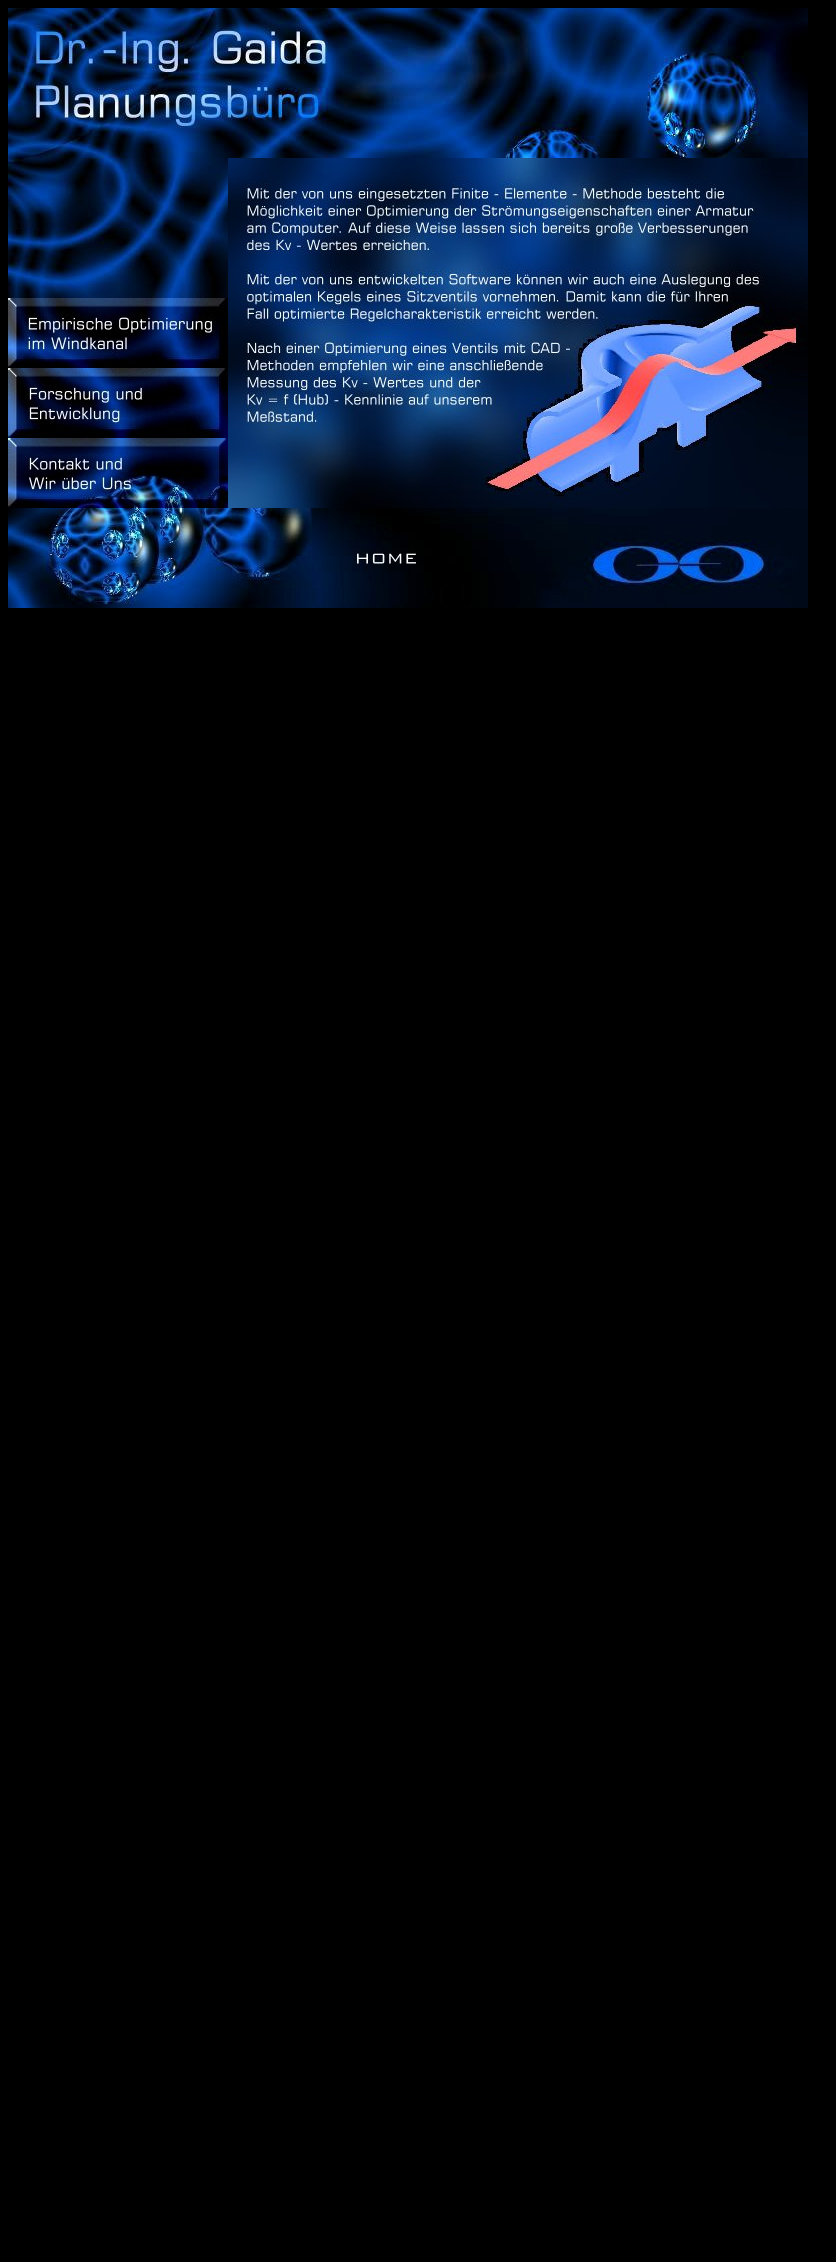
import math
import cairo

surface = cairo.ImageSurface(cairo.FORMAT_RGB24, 836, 2262)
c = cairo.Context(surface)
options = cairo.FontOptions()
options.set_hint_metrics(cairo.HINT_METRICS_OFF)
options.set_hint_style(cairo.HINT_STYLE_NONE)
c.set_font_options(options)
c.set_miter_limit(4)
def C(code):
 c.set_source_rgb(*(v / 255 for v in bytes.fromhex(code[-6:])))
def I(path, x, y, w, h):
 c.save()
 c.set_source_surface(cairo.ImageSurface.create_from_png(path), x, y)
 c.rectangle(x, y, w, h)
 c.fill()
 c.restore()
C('000000')
c.paint()
I('1.png',8,8,800,150)
I('2.png',8,158,220,70)
I('3.png',228,158,580,350)
I('4.png',8,228,220,70)
I('5.png',8,298,220,70)
I('6.png',8,368,220,70)
I('7.png',8,438,220,70)
I('8.png',8,508,800,100)
surface.write_to_png('o.png')
